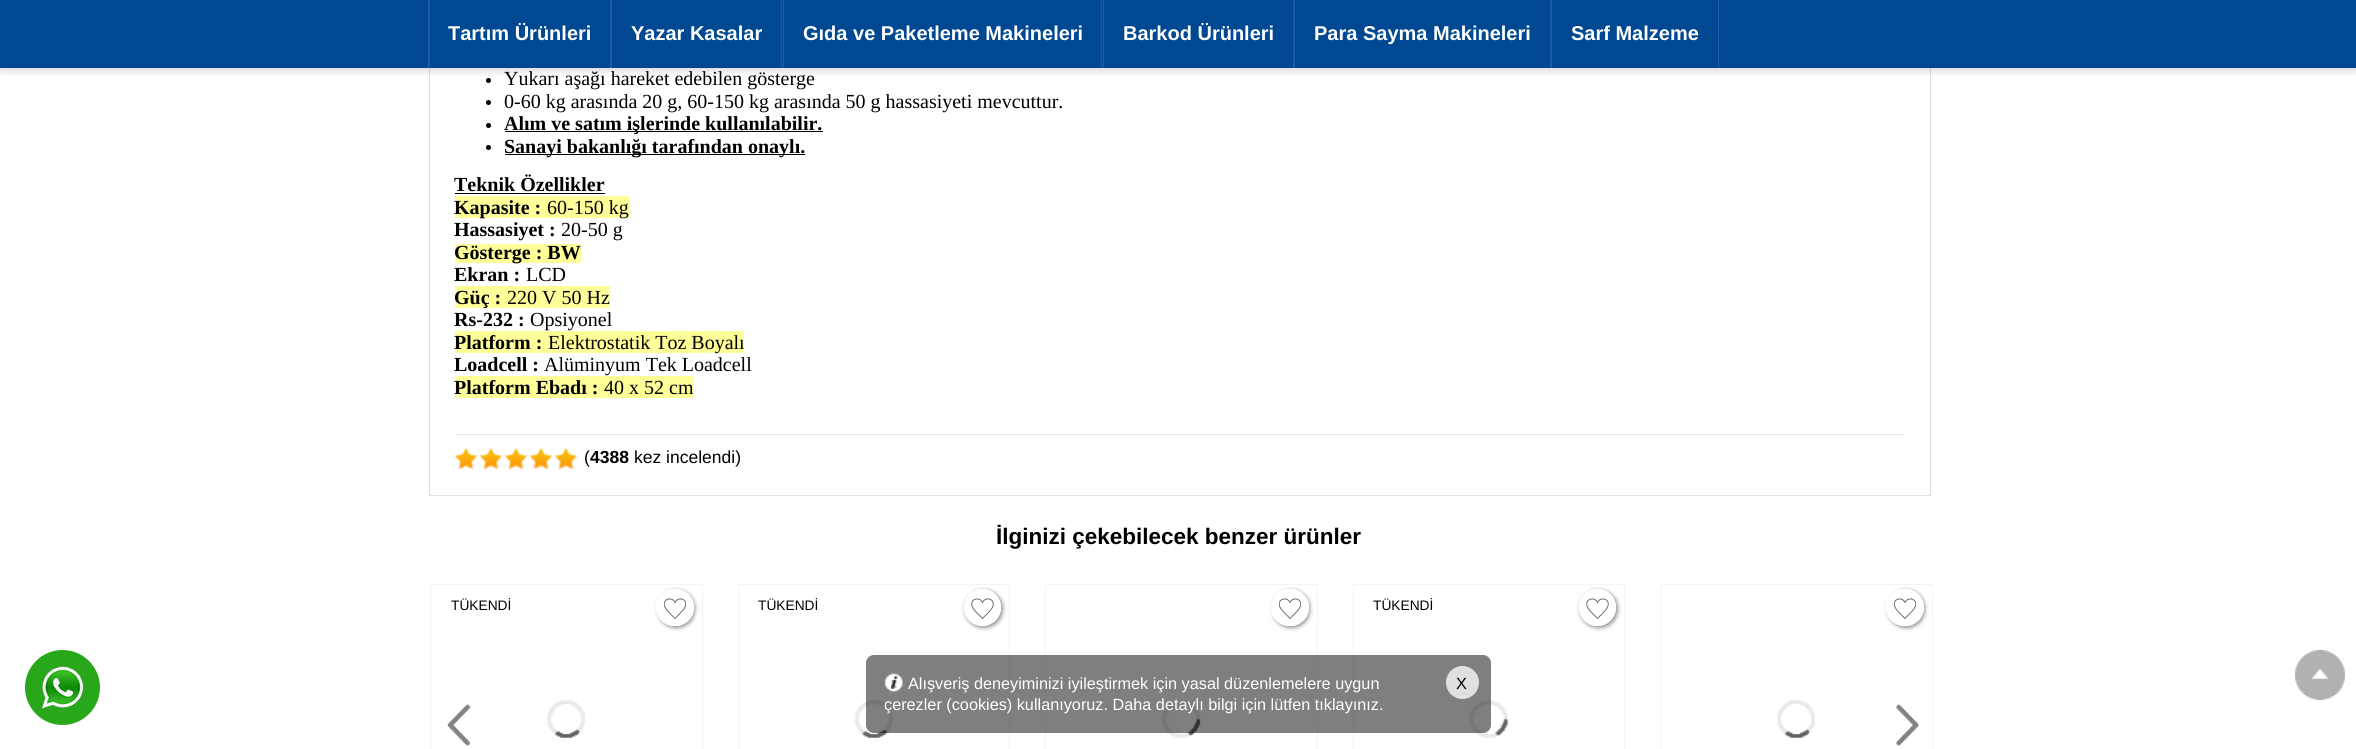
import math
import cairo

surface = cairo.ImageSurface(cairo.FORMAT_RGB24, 2356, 749)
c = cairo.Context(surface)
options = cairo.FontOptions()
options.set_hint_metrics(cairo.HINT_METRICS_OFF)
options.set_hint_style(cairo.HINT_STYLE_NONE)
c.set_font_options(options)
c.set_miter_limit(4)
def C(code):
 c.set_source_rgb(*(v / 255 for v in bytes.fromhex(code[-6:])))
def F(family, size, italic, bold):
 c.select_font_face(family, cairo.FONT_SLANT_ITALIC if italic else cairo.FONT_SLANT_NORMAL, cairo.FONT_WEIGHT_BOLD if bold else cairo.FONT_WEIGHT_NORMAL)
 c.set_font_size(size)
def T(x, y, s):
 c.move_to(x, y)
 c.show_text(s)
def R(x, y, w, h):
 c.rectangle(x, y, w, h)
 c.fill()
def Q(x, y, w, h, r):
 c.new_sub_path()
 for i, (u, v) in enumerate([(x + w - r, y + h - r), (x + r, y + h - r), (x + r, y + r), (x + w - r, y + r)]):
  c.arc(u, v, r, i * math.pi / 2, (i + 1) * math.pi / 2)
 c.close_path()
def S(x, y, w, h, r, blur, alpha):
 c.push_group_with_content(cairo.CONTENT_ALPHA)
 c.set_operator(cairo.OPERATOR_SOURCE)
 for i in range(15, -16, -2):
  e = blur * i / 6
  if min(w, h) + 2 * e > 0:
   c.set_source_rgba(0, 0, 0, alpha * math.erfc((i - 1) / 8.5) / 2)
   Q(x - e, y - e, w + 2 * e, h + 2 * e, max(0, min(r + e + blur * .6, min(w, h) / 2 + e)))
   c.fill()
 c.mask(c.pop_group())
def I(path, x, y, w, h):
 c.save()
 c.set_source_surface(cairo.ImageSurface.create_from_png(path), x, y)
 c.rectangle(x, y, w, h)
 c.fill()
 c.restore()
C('ffffff')
c.paint()
c.rectangle(429.5,-.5,1501,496)
C('e0e0e0')
c.set_line_width(1)
c.stroke()
C('000000')
c.arc(488.5,80.5,2.5,0,2 * math.pi)
c.fill()
C('000000')
S(0,3,2356,68,0,4,.15)
C('004892')
R(0,0,2356,68)
C('1c5c9e')
c.new_path()
c.move_to(428,68)
c.line_to(428,-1)
c.line_to(429,0)
c.line_to(429,68)
c.close_path()
c.fill()
R(610,0,2,68)
R(429,0,1,68)
F('Liberation Sans',20,0,1)
C('ffffff')
T(448,40,'Tartım Ürünleri')
C('1c5c9e')
R(781,0,1,68)
C('ffffff')
T(631,40,'Yazar Kasalar')
C('1c5c9e')
R(1101,0,1,68)
R(783,0,1,68)
C('ffffff')
T(803,40,'Gıda ve Paketleme Makineleri')
C('1c5c9e')
R(1293,0,2,68)
R(1103,0,1,68)
C('ffffff')
T(1123,40,'Barkod Ürünleri')
C('1c5c9e')
R(1550,0,2,68)
C('ffffff')
T(1314,40,'Para Sayma Makineleri')
C('1c5c9e')
R(1718,0,1,68)
C('ffffff')
T(1571,40,'Sarf Malzeme')
F('Liberation Serif',20,0,0)
C('000000')
T(504,85,'Yukarı aşağı hareket edebilen gösterge')
c.new_path()
c.arc(488.5,102.5,2.5,0,2 * math.pi)
c.fill()
T(504,108,'0-60 kg arasında 20 g, 60-150 kg arasında 50 g hassasiyeti mevcuttur.')
c.new_path()
c.arc(488.5,125.5,2.5,0,2 * math.pi)
c.fill()
R(505,131,318,1)
F('Liberation Serif',20,0,1)
T(504,130,'Alım ve satım işlerinde kullanılabilir.')
c.new_path()
c.arc(488.5,147.5,2.5,0,2 * math.pi)
c.fill()
R(505,154,300,1)
T(504,153,'Sanayi bakanlığı tarafından onaylı.')
T(454,191,'Teknik Özellikler')
R(455,193,150,1)
C('ffff99')
R(455,196,174,22)
C('000000')
T(454,214,'Kapasite :')
F('Liberation Serif',20,0,0)
T(547,214,'60-150 kg')
F('Liberation Serif',20,0,1)
T(454,236,'Hassasiyet :')
F('Liberation Serif',20,0,0)
T(561,236,'20-50 g')
C('ffff99')
R(455,244,126,19)
F('Liberation Serif',20,0,1)
C('000000')
T(454,259,'Gösterge : BW')
T(454,281,'Ekran :')
F('Liberation Serif',20,0,0)
T(526,281,'LCD')
C('ffff99')
R(455,286,155,22)
F('Liberation Serif',20,0,1)
C('000000')
T(454,304,'Güç :')
F('Liberation Serif',20,0,0)
T(507,304,'220 V 50 Hz')
F('Liberation Serif',20,0,1)
T(454,326,'Rs-232 :')
F('Liberation Serif',20,0,0)
T(530,326,'Opsiyonel')
C('ffff99')
R(455,331,289,22)
F('Liberation Serif',20,0,1)
C('000000')
T(454,349,'Platform :')
F('Liberation Serif',20,0,0)
T(548,349,'Elektrostatik Toz Boyalı')
F('Liberation Serif',20,0,1)
T(454,371,'Loadcell :')
F('Liberation Serif',20,0,0)
T(544,371,'Alüminyum Tek Loadcell')
C('ffff99')
R(455,376,239,22)
F('Liberation Serif',20,0,1)
C('000000')
T(454,394,'Platform Ebadı :')
F('Liberation Serif',20,0,0)
T(604,394,'40 x 52 cm')
C('e6e6e6')
R(455,434,1450,1)
I('1.png',455,447,23,23)
I('2.png',480,447,23,23)
I('1.png',505,447,23,23)
I('1.png',530,447,23,23)
I('1.png',555,447,23,23)
F('Liberation Sans',17.5,0,0)
C('000000')
T(584,463,'(')
F('Liberation Sans',17.5,0,1)
T(590,463,'4388')
F('Liberation Sans',17.5,0,0)
T(634,463,'kez incelendi)')
F('Liberation Sans',22.5,0,1)
T(996,544,'İlginizi çekebilecek benzer ürünler')
c.rectangle(430.5,584.5,272,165)
C('f3f3f3')
c.stroke()
I('3.png',547,700,38,38)
F('Liberation Sans',13.75,0,0)
C('000000')
T(451,610,'TÜKENDİ')
c.save()
c.set_fill_rule(cairo.FILL_RULE_EVEN_ODD)
c.new_path()
c.move_to(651,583)
c.line_to(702,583)
c.line_to(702,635)
c.line_to(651,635)
c.close_path()
c.move_to(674.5,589)
c.line_to(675.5,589)
c.curve_to(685.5,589,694,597.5,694,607.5)
c.curve_to(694,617.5,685.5,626,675.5,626)
c.line_to(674.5,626)
c.curve_to(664.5,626,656,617.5,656,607.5)
c.curve_to(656,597.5,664.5,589,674.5,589)
c.close_path()
c.clip()
C('666666')
S(658,590,37,38,18.5,2,.7)
c.restore()
c.set_source_rgba(1,1,1,0.9)
Q(656,589,38,37,18.5)
c.fill()
I('4.png',664,598,22,21)
c.rectangle(738.5,584.5,271,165)
C('f3f3f3')
c.stroke()
I('5.png',854,700,39,38)
C('000000')
T(758,610,'TÜKENDİ')
c.save()
c.set_fill_rule(cairo.FILL_RULE_EVEN_ODD)
c.new_path()
c.move_to(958,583)
c.line_to(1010,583)
c.line_to(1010,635)
c.line_to(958,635)
c.close_path()
c.move_to(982.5,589)
c.curve_to(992.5,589,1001,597.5,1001,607.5)
c.curve_to(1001,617.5,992.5,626,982.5,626)
c.curve_to(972.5,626,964,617.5,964,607.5)
c.curve_to(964,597.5,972.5,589,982.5,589)
c.close_path()
c.clip()
C('666666')
S(965,590,38,38,19,2,.7)
c.restore()
c.set_source_rgba(1,1,1,0.9)
c.arc(982.5,607.5,18.5,0,2 * math.pi)
c.fill()
I('6.png',971,598,23,21)
c.rectangle(1045.5,584.5,272,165)
C('f3f3f3')
c.stroke()
c.save()
c.set_fill_rule(cairo.FILL_RULE_EVEN_ODD)
c.new_path()
c.move_to(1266,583)
c.line_to(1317,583)
c.line_to(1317,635)
c.line_to(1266,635)
c.close_path()
c.move_to(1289.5,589)
c.line_to(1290.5,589)
c.curve_to(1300.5,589,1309,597.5,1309,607.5)
c.curve_to(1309,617.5,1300.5,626,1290.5,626)
c.line_to(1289.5,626)
c.curve_to(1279.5,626,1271,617.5,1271,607.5)
c.curve_to(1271,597.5,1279.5,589,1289.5,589)
c.close_path()
c.clip()
C('666666')
S(1273,590,37,38,18.5,2,.7)
c.restore()
c.set_source_rgba(1,1,1,0.9)
Q(1271,589,38,37,18.5)
c.fill()
I('4.png',1279,598,22,21)
I('7.png',1162,700,39,38)
c.rectangle(1353.5,584.5,271,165)
C('f3f3f3')
c.stroke()
I('8.png',1469,700,40,38)
C('000000')
T(1373,610,'TÜKENDİ')
c.save()
c.set_fill_rule(cairo.FILL_RULE_EVEN_ODD)
c.new_path()
c.move_to(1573,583)
c.line_to(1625,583)
c.line_to(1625,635)
c.line_to(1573,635)
c.close_path()
c.move_to(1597.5,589)
c.curve_to(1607.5,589,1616,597.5,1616,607.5)
c.curve_to(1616,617.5,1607.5,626,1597.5,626)
c.curve_to(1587.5,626,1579,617.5,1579,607.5)
c.curve_to(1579,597.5,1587.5,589,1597.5,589)
c.close_path()
c.clip()
C('666666')
S(1580,590,38,38,19,2,.7)
c.restore()
c.set_source_rgba(1,1,1,0.9)
c.arc(1597.5,607.5,18.5,0,2 * math.pi)
c.fill()
I('6.png',1586,598,23,21)
c.rectangle(1660.5,584.5,272,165)
C('f3f3f3')
c.stroke()
c.save()
c.set_fill_rule(cairo.FILL_RULE_EVEN_ODD)
c.new_path()
c.move_to(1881,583)
c.line_to(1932,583)
c.line_to(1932,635)
c.line_to(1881,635)
c.close_path()
c.move_to(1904.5,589)
c.line_to(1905.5,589)
c.curve_to(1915.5,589,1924,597.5,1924,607.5)
c.curve_to(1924,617.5,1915.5,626,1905.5,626)
c.line_to(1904.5,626)
c.curve_to(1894.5,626,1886,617.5,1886,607.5)
c.curve_to(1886,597.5,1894.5,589,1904.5,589)
c.close_path()
c.clip()
C('666666')
S(1888,590,37,38,18.5,2,.7)
c.restore()
c.set_source_rgba(1,1,1,0.9)
Q(1886,589,38,37,18.5)
c.fill()
I('4.png',1894,598,22,21)
I('9.png',1777,700,38,38)
I('10.png',447,704,24,42)
I('11.png',1895,704,25,42)
C('29a71a')
c.arc(62.5,687.5,37.5,0,2 * math.pi)
c.fill()
I('12.png',41,665,44,44)
c.set_source_rgba(0,0,0,0.5)
Q(866,655,625,78,8)
c.fill()
I('13.png',884,673,19,19)
F('Liberation Sans',16.25,0,0)
C('ffffff')
T(908,689,'Alışveriş deneyiminizi iyileştirmek için yasal düzenlemelere uygun')
C('e0e0e0')
c.new_path()
c.arc(1462.5,682.5,16.5,0,2 * math.pi)
c.fill()
C('000000')
T(1456,689,'X')
C('ffffff')
T(884,710,'çerezler (cookies) kullanıyoruz. Daha detaylı bilgi için lütfen tıklayınız.')
I('14.png',2295,650,50,50)
surface.write_to_png('o.png')
